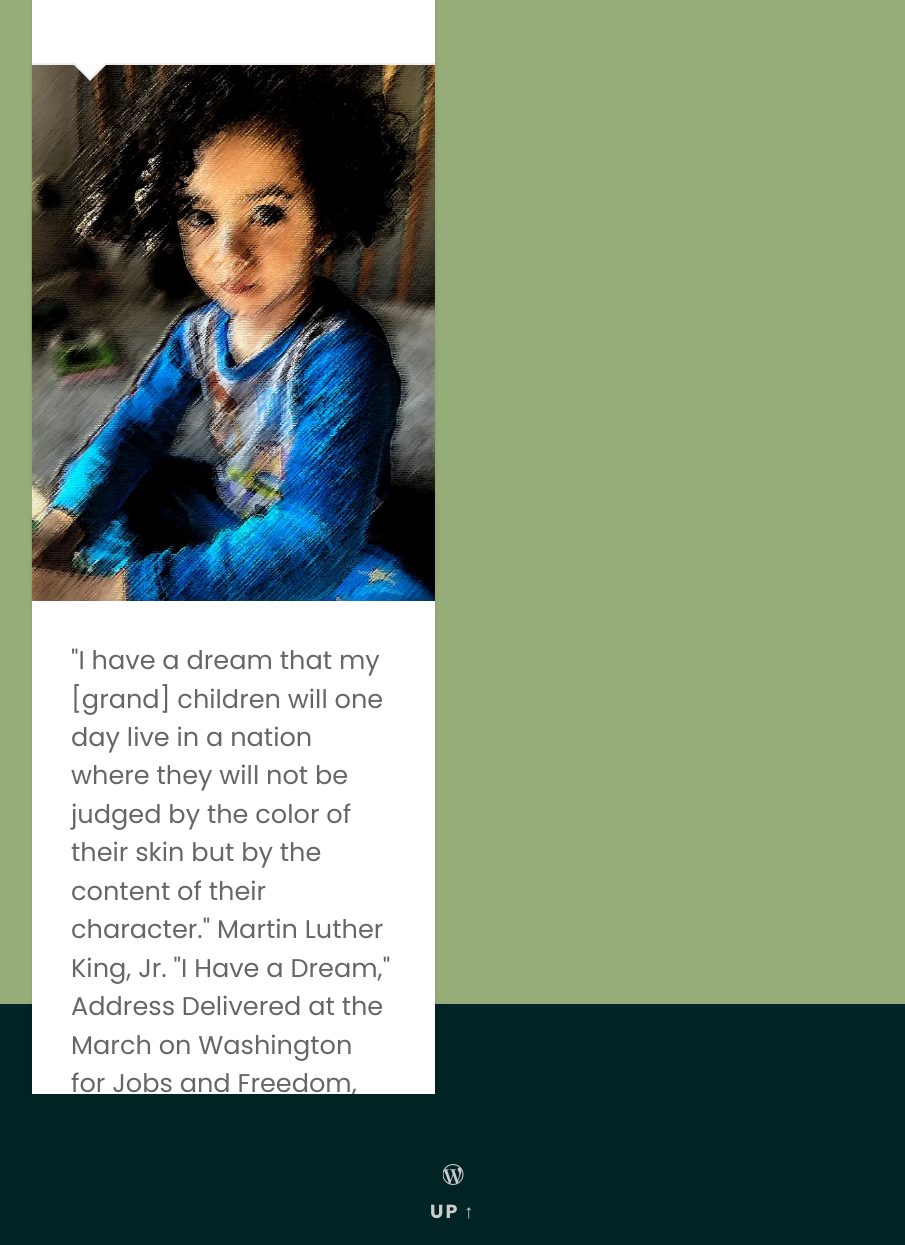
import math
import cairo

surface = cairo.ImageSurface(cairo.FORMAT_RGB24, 905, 1245)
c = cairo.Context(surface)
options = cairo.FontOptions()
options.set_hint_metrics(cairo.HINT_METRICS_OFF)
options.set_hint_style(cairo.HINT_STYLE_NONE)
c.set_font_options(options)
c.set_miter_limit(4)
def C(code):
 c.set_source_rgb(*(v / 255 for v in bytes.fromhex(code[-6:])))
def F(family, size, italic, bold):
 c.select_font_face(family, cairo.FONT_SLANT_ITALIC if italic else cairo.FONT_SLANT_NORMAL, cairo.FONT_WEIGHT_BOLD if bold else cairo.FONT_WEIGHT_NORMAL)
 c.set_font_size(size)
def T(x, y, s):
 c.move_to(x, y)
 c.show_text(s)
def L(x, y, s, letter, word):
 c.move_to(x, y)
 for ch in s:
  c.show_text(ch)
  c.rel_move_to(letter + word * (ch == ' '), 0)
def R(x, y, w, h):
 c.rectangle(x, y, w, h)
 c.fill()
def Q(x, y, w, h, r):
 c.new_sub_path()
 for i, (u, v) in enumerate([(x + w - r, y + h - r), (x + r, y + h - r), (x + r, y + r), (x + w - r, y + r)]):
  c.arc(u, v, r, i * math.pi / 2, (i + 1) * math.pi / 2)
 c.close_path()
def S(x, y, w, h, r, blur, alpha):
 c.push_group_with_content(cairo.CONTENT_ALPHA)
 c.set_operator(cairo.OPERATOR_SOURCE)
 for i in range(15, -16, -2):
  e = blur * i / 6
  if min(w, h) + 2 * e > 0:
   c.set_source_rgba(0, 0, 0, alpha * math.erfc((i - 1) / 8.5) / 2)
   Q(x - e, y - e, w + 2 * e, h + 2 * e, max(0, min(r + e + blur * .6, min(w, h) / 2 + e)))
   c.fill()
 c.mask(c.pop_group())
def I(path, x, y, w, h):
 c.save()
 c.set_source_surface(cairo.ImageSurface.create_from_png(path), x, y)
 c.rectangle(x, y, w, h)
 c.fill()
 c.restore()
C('97ad79')
c.paint()
C('002323')
R(0,1004,905,90)
C('000000')
S(32,-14,403,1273,5,3,.1)
C('ffffff')
R(32,0,403,1094)
I('1.png',31,64,404,537)
C('eeeeee')
R(32,63,403,2)
c.new_path()
c.move_to(72,63)
c.line_to(108,63)
c.line_to(90,81)
c.close_path()
c.fill()
C('ffffff')
c.new_path()
c.move_to(73.5,61.5)
c.line_to(106.5,61.5)
c.line_to(90,78)
c.close_path()
c.fill()
F('Poppins',25.6,0,0)
C('666666')
T(71,669,'"I have a dream that my')
T(71,708,'[grand] children will one')
T(71,746,'day live in a nation')
T(71,784,'where they will not be')
T(71,823,'judged by the color of')
T(71,861,'their skin but by the')
T(71,900,'content of their')
T(71,938,'character." Martin Luther')
T(71,977,'King, Jr. "I Have a Dream,"')
T(71,1015,'Address Delivered at the')
T(71,1054,'March on Washington')
T(71,1092,'for Jobs and Freedom,')
C('002323')
R(0,1094,905,151)
I('2.png',443,1164,21,21)
F('Poppins',19,0,1)
C('cccccc')
L(430,1218,'UP',2,0)
F('Liberation Sans',19,0,1)
L(464,1218,'↑',2,0)
surface.write_to_png('o.png')
